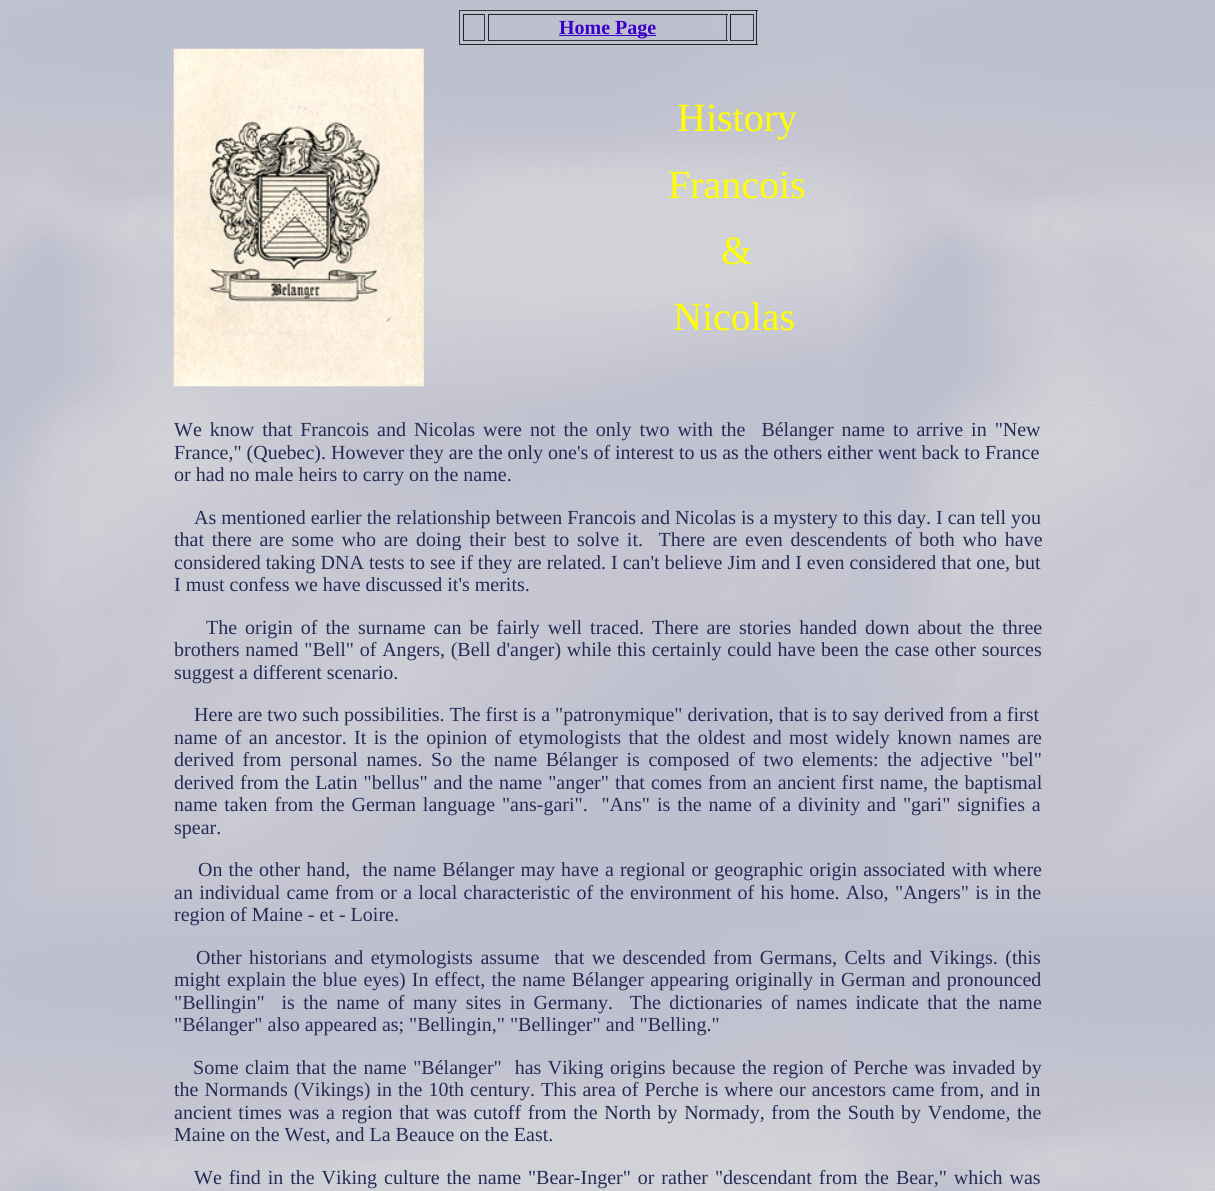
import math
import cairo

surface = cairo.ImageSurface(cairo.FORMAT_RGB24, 1215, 1191)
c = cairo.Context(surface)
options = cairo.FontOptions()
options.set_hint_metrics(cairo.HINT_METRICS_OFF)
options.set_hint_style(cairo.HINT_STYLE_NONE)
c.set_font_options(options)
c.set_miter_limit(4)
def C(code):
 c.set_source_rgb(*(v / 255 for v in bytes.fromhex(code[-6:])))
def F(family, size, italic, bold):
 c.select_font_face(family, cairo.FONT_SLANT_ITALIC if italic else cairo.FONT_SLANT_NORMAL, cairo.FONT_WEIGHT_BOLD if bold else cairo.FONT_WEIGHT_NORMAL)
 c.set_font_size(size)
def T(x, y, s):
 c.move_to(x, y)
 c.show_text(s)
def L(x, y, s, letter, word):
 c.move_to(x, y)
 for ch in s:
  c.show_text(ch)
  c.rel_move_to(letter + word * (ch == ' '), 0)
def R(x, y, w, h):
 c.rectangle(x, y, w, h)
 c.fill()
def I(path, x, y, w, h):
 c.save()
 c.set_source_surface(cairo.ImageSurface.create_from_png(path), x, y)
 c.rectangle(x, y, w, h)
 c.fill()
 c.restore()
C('ffffff')
c.paint()
I('1.png',0,0,1215,1191)
C('333333')
R(459,10,299,1)
C('222222')
R(756,10,1,35)
R(459,44,299,1)
C('333333')
R(459,10,1,35)
C('222222')
R(463,14,22,1)
C('333333')
R(484,14,1,27)
R(463,40,22,1)
C('222222')
R(463,14,1,27)
R(488,14,240,1)
C('333333')
R(726,14,1,27)
R(488,40,240,1)
C('222222')
R(488,14,1,27)
C('3b00ca')
R(559,35,97,1)
F('Liberation Serif',20,0,1)
T(559,34,'Home Page')
C('222222')
R(730,14,24,1)
C('333333')
R(753,14,1,27)
R(730,40,24,1)
C('222222')
R(730,14,1,27)
I('2.png',173,48,251,339)
F('Liberation Serif',40,0,0)
C('ffff00')
T(677,131,'History')
T(668,198,'Francois')
T(721,264,'&')
T(673,330,'Nicolas')
F('Liberation Serif',20,0,0)
C('282a55')
L(174,436,'We know that Francois and Nicolas were not the only two with the  Bélanger name to arrive in "New',0,3)
T(174,459,'France," (Quebec). However they are the only one\'s of interest to us as the others either went back to France')
T(174,481,'or had no male heirs to carry on the name.')
T(194,524,'As mentioned earlier the relationship between Francois and Nicolas is a mystery to this day. I can tell you')
L(174,546,'that there are some who are doing their best to solve it.  There are even descendents of both who have',0,2.75)
T(174,569,'considered taking DNA tests to see if they are related. I can\'t believe Jim and I even considered that one, but')
T(174,591,'I must confess we have discussed it\'s merits.')
L(206,634,'The origin of the surname can be fairly well traced. There are stories handed down about the three',0,3)
L(174,656,'brothers named "Bell" of Angers, (Bell d\'anger) while this certainly could have been the case other sources',0,.75)
T(174,679,'suggest a different scenario.')
T(194,721,'Here are two such possibilities. The first is a "patronymique" derivation, that is to say derived from a first')
L(174,744,'name of an ancestor. It is the opinion of etymologists that the oldest and most widely known names are',0,2.4)
L(174,766,'derived from personal names. So the name Bélanger is composed of two elements: the adjective "bel"',0,3.6)
L(174,789,'derived from the Latin "bellus" and the name "anger" that comes from an ancient first name, the baptismal',0,1)
L(174,811,'name taken from the German language "ans-gari".  "Ans" is the name of a divinity and "gari" signifies a',0,1.9)
T(174,834,'spear.')
L(198,876,'On the other hand,  the name Bélanger may have a regional or geographic origin associated with where',0,1.1)
L(174,899,'an individual came from or a local characteristic of the environment of his home. Also, "Angers" is in the',0,1.3)
T(174,921,'region of Maine - et - Loire.')
L(196,964,'Other historians and etymologists assume  that we descended from Germans, Celts and Vikings. (this',0,2.5)
L(174,986,'might explain the blue eyes) In effect, the name Bélanger appearing originally in German and pronounced',0,1.25)
L(174,1009,'"Bellingin"  is the name of many sites in Germany.  The dictionaries of names indicate that the name',0,3.4)
T(174,1031,'"Bélanger" also appeared as; "Bellingin," "Bellinger" and "Belling."')
L(193,1074,'Some claim that the name "Bélanger"  has Viking origins because the region of Perche was invaded by',0,1.5)
L(174,1096,'the Normands (Vikings) in the 10th century. This area of Perche is where our ancestors came from, and in',0,1)
L(174,1119,'ancient times was a region that was cutoff from the North by Normady, from the South by Vendome, the',0,1.6)
T(174,1141,'Maine on the West, and La Beauce on the East.')
L(194,1184,'We find in the Viking culture the name "Bear-Inger" or rather "descendant from the Bear," which was',0,1.9)
surface.write_to_png('o.png')
